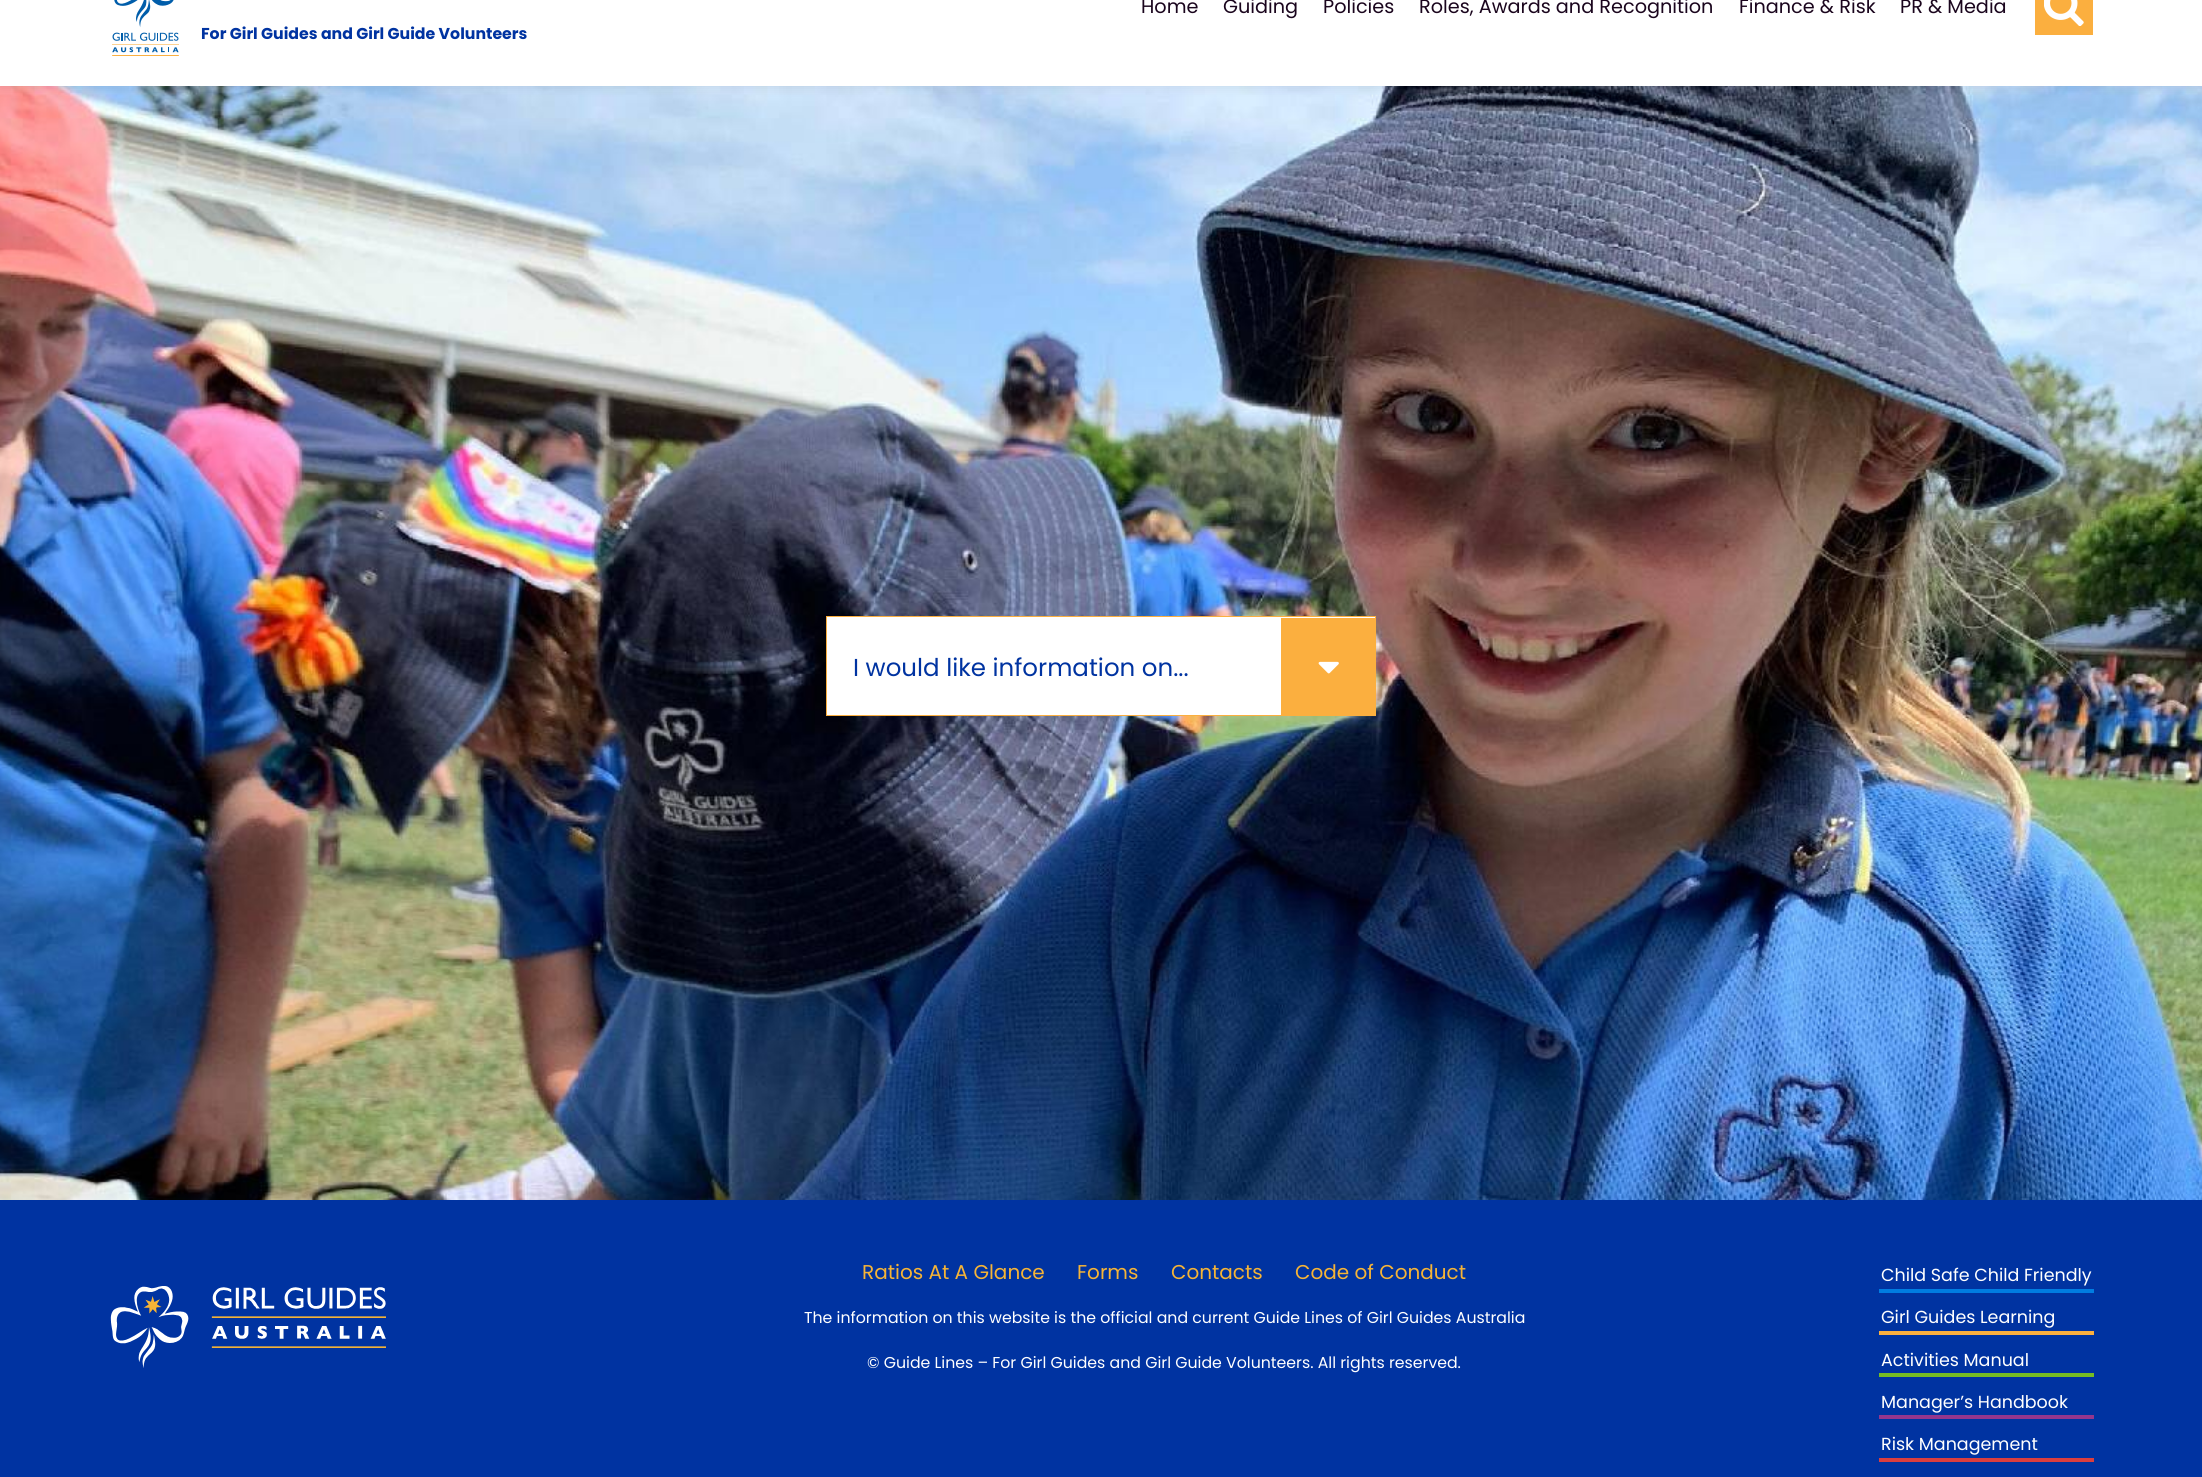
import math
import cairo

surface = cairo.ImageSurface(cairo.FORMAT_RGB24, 2202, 1477)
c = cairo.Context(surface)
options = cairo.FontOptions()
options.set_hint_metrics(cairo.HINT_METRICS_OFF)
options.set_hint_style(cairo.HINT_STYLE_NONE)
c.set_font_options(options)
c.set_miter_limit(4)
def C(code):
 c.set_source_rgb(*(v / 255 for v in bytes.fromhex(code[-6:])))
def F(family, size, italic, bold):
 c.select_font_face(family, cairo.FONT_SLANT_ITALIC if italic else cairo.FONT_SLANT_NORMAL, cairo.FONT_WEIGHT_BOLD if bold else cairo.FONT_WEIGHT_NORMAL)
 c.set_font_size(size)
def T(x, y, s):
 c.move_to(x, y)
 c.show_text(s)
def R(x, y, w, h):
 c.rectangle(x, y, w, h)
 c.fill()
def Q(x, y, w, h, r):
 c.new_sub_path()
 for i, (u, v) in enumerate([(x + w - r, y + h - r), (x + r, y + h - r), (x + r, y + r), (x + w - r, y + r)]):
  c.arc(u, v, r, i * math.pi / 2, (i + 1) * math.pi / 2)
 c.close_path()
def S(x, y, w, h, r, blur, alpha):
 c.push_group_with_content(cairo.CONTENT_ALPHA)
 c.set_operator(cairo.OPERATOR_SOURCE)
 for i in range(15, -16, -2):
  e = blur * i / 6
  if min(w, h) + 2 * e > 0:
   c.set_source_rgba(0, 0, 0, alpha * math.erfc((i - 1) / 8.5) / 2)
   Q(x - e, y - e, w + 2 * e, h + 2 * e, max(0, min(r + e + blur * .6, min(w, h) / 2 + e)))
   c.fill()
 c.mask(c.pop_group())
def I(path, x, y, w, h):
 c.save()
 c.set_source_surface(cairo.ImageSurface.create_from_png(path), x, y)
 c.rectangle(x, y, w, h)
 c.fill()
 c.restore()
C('ffffff')
c.paint()
I('3.png',0,86,2202,1114)
C('000000')
S(0,-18,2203,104,0,6,.1)
C('ffffff')
R(0,0,2202,86)
F('Poppins',19.25,0,0)
C('1a051d')
T(1141,13,'Home')
T(1223,13,'Guiding')
T(1323,13,'Policies')
T(1419,13,'Roles, Awards and Recognition')
T(1739,13,'Finance & Risk')
T(1900,13,'PR & Media')
C('fbaf3f')
R(2035,0,58,35)
I('1.png',2044,0,40,26)
I('2.png',112,0,67,56)
F('Poppins',15.75,0,1)
C('0033a1')
T(201,39,'For Girl Guides and Girl Guide Volunteers')
C('ffffff')
c.rectangle(826.5,616.5,549,99)
c.fill_preserve()
C('fbaf3f')
c.set_line_width(1)
c.stroke()
F('Poppins',24.5,0,0)
C('0033a1')
T(853,676,'I would like information on...')
C('fbaf3f')
R(1281,618,94,97)
I('4.png',1318,661,21,13)
C('0033a1')
R(0,1200,2202,277)
I('5.png',110,1286,276,82)
F('Poppins',20,0,0)
C('f6b436')
T(862,1279,'Ratios At A Glance')
T(1077,1279,'Forms')
T(1171,1279,'Contacts')
T(1295,1279,'Code of Conduct')
C('007ce1')
R(1879,1289,215,4)
F('Poppins',17.5,0,0)
C('ffffff')
T(1881,1281,'Child Safe Child Friendly')
C('fbaf3f')
R(1879,1331,215,4)
C('ffffff')
T(1881,1323,'Girl Guides Learning')
C('76bd22')
R(1879,1373,215,4)
C('ffffff')
T(1881,1366,'Activities Manual')
C('94368d')
R(1879,1415,215,4)
C('ffffff')
T(1881,1408,'Manager’s Handbook')
C('db3e3e')
R(1879,1458,215,4)
C('ffffff')
T(1881,1450,'Risk Management')
F('Poppins',15.75,0,0)
T(804,1323,'The information on this website is the official and current Guide Lines of Girl Guides Australia')
T(867,1368,'© Guide Lines – For Girl Guides and Girl Guide Volunteers. All rights reserved.')
surface.write_to_png('o.png')
